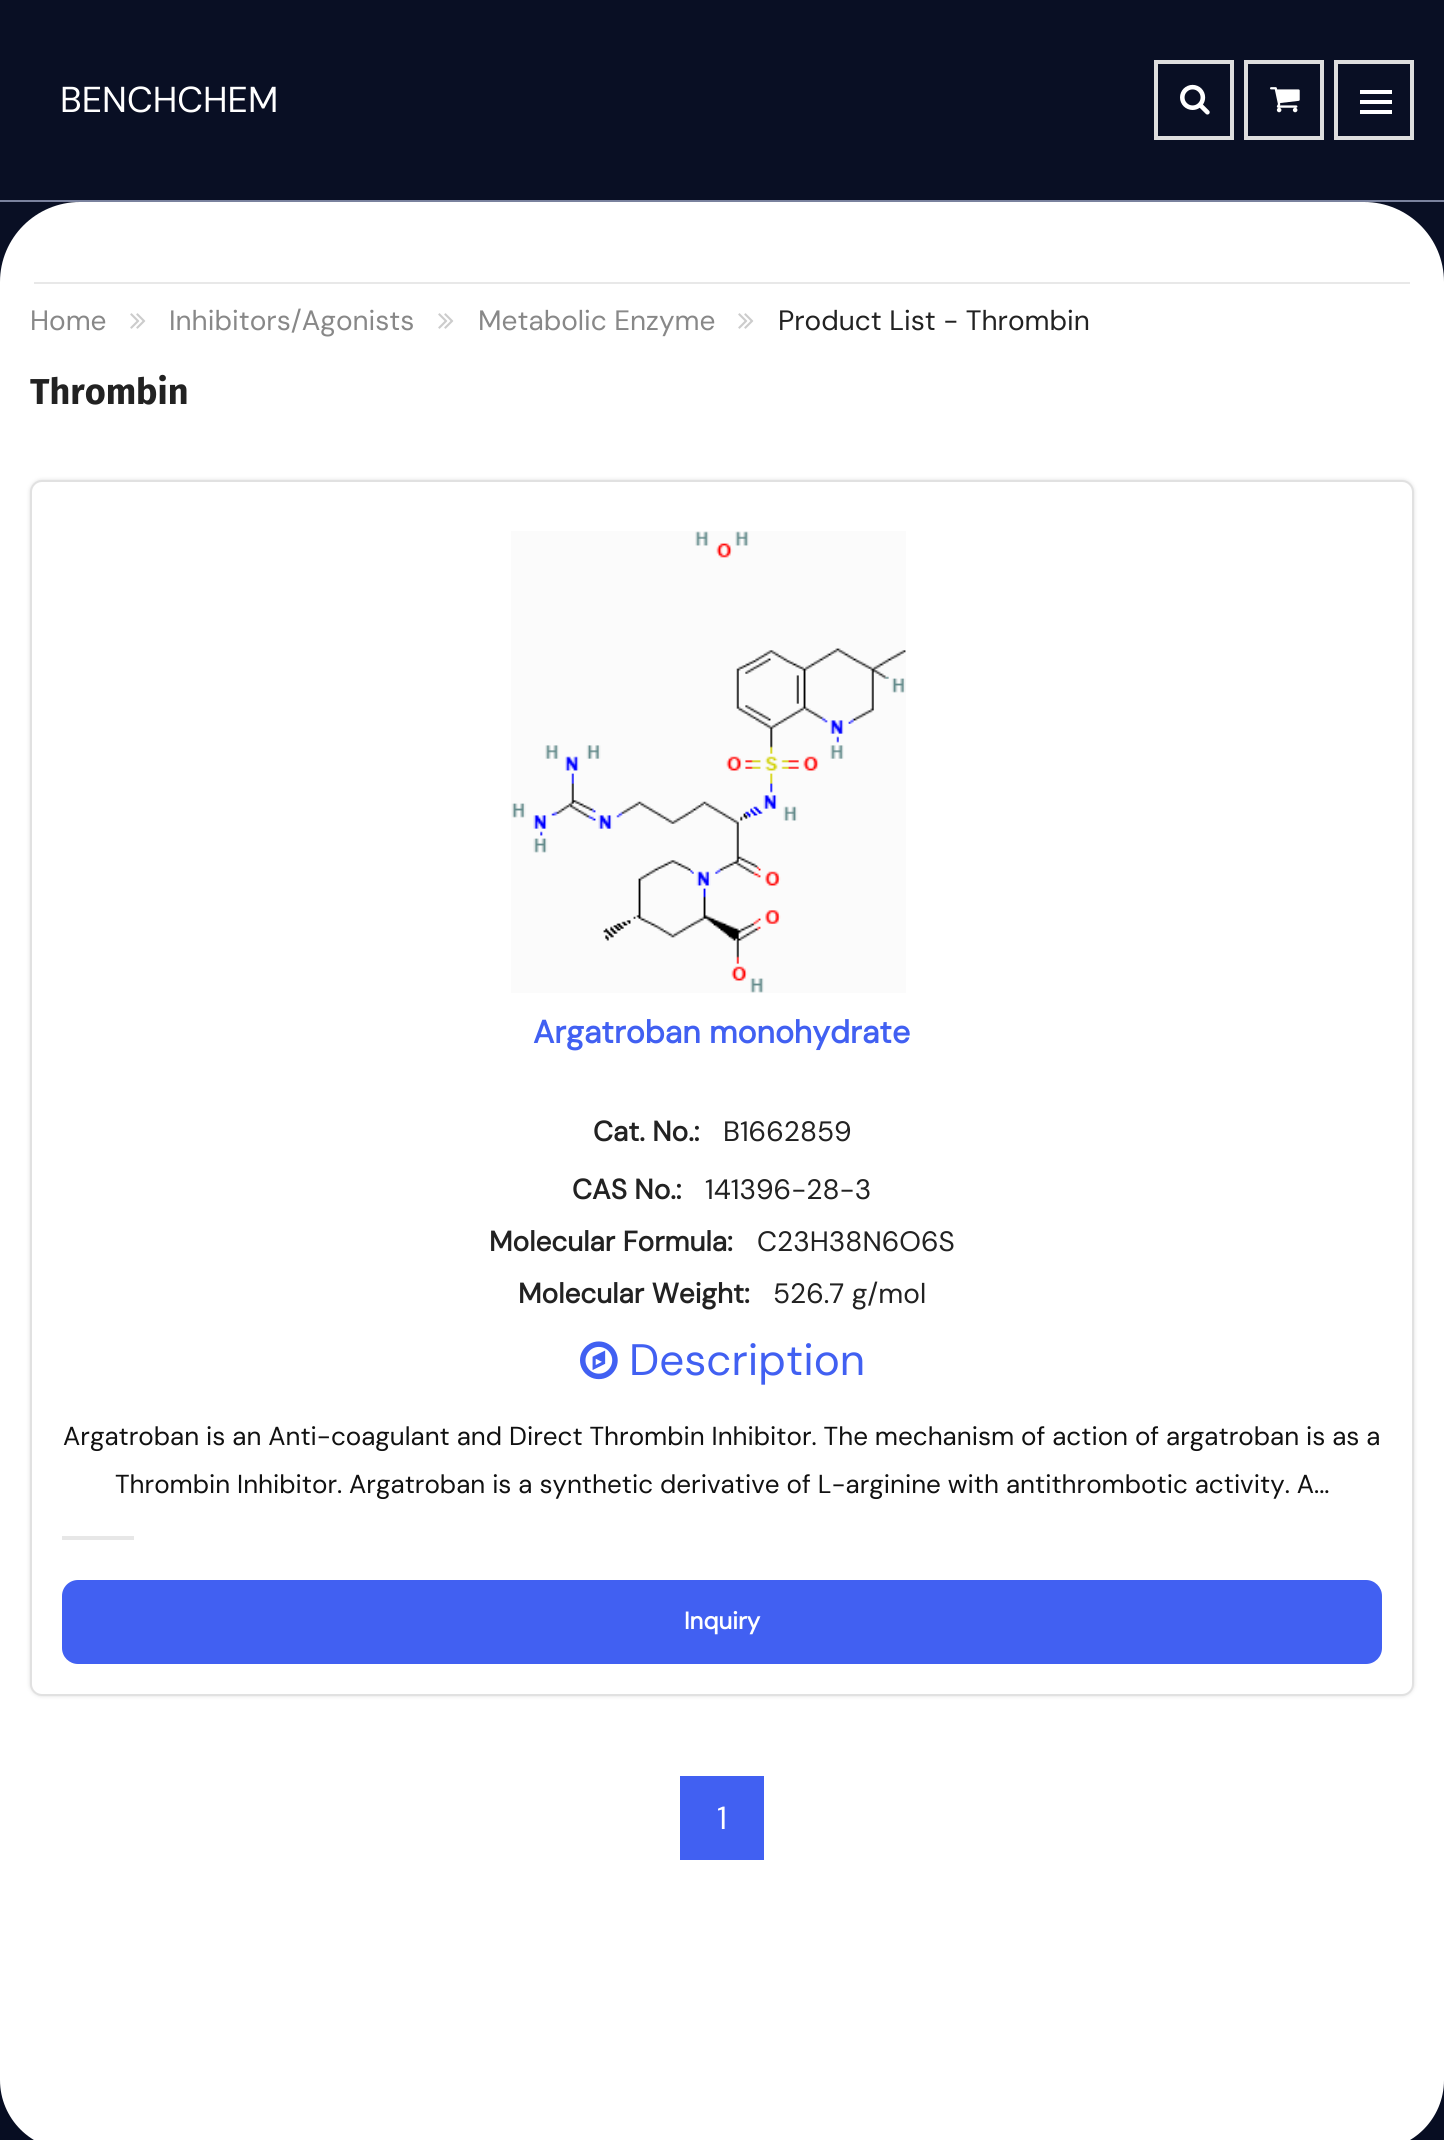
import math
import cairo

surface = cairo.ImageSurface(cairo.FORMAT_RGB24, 1444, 2140)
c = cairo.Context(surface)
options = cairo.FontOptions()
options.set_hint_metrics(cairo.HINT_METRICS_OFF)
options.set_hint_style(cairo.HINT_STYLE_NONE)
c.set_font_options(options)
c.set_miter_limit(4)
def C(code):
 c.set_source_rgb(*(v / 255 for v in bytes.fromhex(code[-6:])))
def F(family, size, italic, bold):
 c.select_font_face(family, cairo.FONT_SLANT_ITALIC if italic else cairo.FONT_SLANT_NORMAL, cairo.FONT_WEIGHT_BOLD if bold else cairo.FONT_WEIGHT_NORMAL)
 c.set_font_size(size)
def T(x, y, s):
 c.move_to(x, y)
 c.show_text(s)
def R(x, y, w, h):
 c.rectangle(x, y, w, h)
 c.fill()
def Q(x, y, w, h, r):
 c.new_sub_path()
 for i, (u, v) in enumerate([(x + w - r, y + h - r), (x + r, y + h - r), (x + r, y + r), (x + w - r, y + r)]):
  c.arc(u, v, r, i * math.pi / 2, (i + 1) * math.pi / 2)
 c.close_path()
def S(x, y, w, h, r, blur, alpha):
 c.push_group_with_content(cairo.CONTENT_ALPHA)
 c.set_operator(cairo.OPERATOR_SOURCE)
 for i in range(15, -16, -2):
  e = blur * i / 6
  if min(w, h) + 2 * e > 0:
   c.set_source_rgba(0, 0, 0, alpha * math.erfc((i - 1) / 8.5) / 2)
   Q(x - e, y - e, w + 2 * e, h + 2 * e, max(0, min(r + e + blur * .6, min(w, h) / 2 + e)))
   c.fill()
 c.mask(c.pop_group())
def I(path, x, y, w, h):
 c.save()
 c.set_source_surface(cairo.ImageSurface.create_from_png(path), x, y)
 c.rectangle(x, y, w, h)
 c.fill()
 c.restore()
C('ffffff')
c.paint()
C('090f24')
R(0,0,1444,200)
C('7a829e')
R(0,200,1444,2)
F('DM Sans',36,0,0)
C('ffffff')
T(60,112,'BENCHCHEM')
c.rectangle(1156,62,76,76)
C('dedede')
c.set_line_width(4)
c.stroke()
I('1.png',1180,84,30,31)
c.rectangle(1246,62,76,76)
c.stroke()
I('2.png',1270,87,30,26)
c.rectangle(1336,62,76,76)
c.stroke()
C('ffffff')
R(1360,90,32,4)
R(1360,100,32,4)
R(1360,110,32,4)
C('090f24')
R(0,202,1444,80)
C('ffffff')
Q(0,202,1444,160,80)
c.fill()
C('e8e8e8')
R(34,282,1376,2)
F('DM Sans',28,0,0)
C('888888')
T(30,330,'Home')
I('3.png',130,313,16,16)
T(169,330,'Inhibitors/Agonists')
I('3.png',438,313,16,16)
T(478,330,'Metabolic Enzyme')
I('3.png',738,313,16,16)
C('222222')
T(778,330,'Product List - Thrombin')
F('Fira Sans',36,0,1)
T(30,404,'Thrombin')
C('dddddd')
S(30,480,1384,1216,12,2,1)
C('ffffff')
Q(31,481,1382,1214,11)
c.fill_preserve()
C('e1e1e1')
c.set_line_width(2)
c.stroke()
I('4.png',511,531,395,462)
F('DM Sans',32,0,1)
C('4160f2')
T(533,1043,'Argatroban monohydrate')
F('DM Sans',28,0,1)
C('222222')
T(593,1141,'Cat. No.:')
F('DM Sans',28,0,0)
T(723,1141,'B1662859')
F('DM Sans',28,0,1)
T(572,1199,'CAS No.:')
F('DM Sans',28,0,0)
T(705,1199,'141396-28-3')
F('DM Sans',28,0,1)
T(489,1251,'Molecular Formula:')
F('DM Sans',28,0,0)
T(757,1251,'C23H38N6O6S')
F('DM Sans',28,0,1)
T(518,1303,'Molecular Weight:')
F('DM Sans',28,0,0)
T(773,1303,'526.7 g/mol')
I('5.png',580,1341,38,39)
F('DM Sans',44,0,0)
C('4160f2')
T(629,1375,'Description')
F('DM Sans',26,0,0)
C('111111')
T(63,1445,'Argatroban is an Anti-coagulant and Direct Thrombin Inhibitor. The mechanism of action of argatroban is as a')
T(115,1493,'Thrombin Inhibitor. Argatroban is a synthetic derivative of L-arginine with antithrombotic activity. A...')
C('e7e7e7')
R(62,1536,72,4)
C('4160f2')
Q(62,1580,1320,84,16)
c.fill()
F('DM Sans',24,0,1)
C('ffffff')
T(684,1629,'Inquiry')
C('4160f2')
R(680,1776,84,84)
F('DM Sans',32,0,0)
C('ffffff')
T(717,1829,'1')
C('070d22')
R(0,2080,1444,60)
C('ffffff')
Q(0,1990,1444,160,70)
c.fill()
surface.write_to_png('o.png')
